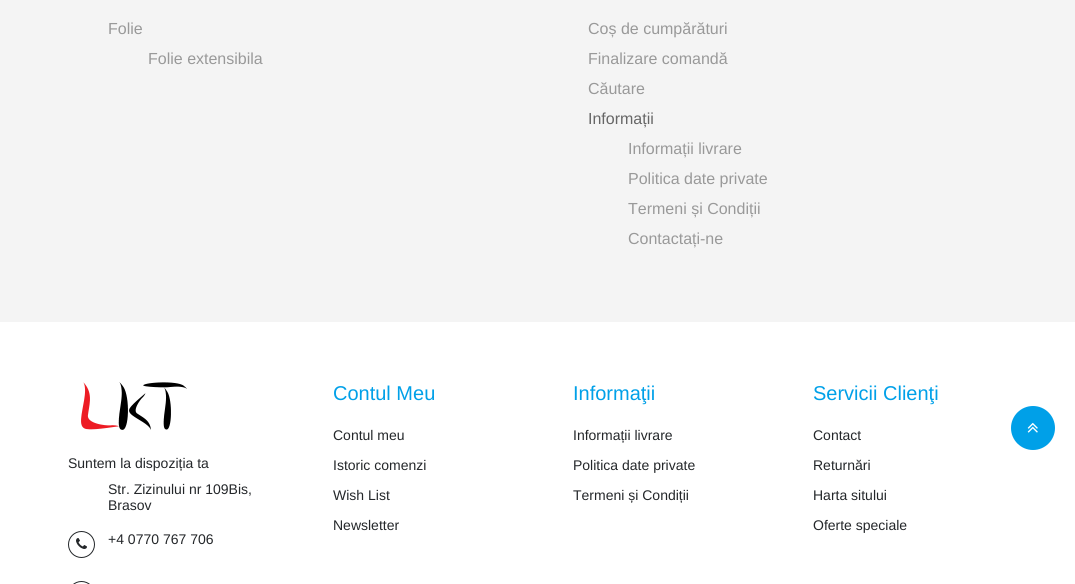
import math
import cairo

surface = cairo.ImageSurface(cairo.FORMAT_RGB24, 1075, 584)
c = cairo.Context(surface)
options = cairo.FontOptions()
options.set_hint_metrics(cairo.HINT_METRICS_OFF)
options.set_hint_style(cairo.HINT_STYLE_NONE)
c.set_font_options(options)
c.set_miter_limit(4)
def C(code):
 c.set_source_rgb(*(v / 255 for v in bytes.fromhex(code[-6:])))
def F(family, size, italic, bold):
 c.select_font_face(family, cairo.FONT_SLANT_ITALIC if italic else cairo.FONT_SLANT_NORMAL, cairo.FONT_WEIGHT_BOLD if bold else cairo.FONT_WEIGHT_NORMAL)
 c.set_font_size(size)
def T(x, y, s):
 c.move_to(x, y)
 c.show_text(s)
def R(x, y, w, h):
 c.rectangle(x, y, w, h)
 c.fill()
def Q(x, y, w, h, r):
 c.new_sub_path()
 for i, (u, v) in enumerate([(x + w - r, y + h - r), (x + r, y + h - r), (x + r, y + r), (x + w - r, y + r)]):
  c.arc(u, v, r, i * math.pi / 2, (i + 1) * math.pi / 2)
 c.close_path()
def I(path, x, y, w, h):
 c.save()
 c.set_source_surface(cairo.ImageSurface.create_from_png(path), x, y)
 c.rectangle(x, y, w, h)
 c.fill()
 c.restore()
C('f4f4f4')
c.paint()
F('Liberation Sans',16,0,0)
C('999999')
T(108,34,'Folie')
T(148,64,'Folie extensibila')
T(588,34,'Coș de cumpărături')
T(588,64,'Finalizare comandă')
T(588,94,'Căutare')
C('666666')
T(588,124,'Informații')
C('999999')
T(628,154,'Informații livrare')
T(628,184,'Politica date private')
T(628,214,'Termeni și Condiții')
T(628,244,'Contactați-ne')
C('ffffff')
R(0,322,1075,262)
I('1.png',81,382,106,48)
F('Liberation Sans',14,0,0)
C('24272a')
T(68,468,'Suntem la dispoziția ta')
T(108,494,'Str. Zizinului nr 109Bis,')
T(108,510,'Brasov')
c.new_path()
c.arc(81.5,544.5,13,0,2 * math.pi)
c.set_line_width(1)
c.stroke()
I('2.png',76,538,11,11)
T(108,544,'+4 0770 767 706')
Q(68.5,581.5,26,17,13)
c.stroke()
F('Liberation Sans',20,0,0)
C('00a0e8')
T(333,400,'Contul Meu')
F('Liberation Sans',14,0,0)
C('24272a')
T(333,440,'Contul meu')
T(333,470,'Istoric comenzi')
T(333,500,'Wish List')
T(333,530,'Newsletter')
F('Liberation Sans',20,0,0)
C('00a0e8')
T(573,400,'Informaţii')
F('Liberation Sans',14,0,0)
C('24272a')
T(573,440,'Informații livrare')
T(573,470,'Politica date private')
T(573,500,'Termeni și Condiții')
F('Liberation Sans',20,0,0)
C('00a0e8')
T(813,400,'Servicii Clienţi')
F('Liberation Sans',14,0,0)
C('24272a')
T(813,440,'Contact')
T(813,470,'Returnări')
T(813,500,'Harta sitului')
T(813,530,'Oferte speciale')
C('00a0e8')
c.new_path()
c.arc(1033,428,22,0,2 * math.pi)
c.fill()
I('3.png',1027,422,11,11)
surface.write_to_png('o.png')
